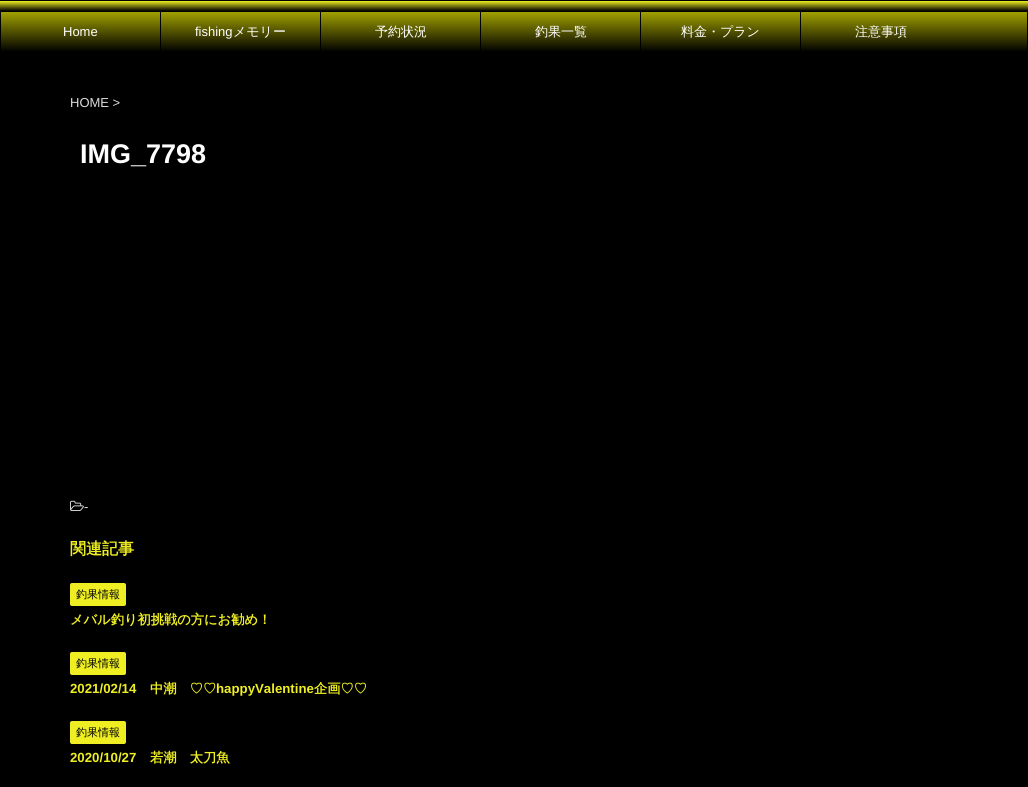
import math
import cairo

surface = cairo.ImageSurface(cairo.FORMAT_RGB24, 1028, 787)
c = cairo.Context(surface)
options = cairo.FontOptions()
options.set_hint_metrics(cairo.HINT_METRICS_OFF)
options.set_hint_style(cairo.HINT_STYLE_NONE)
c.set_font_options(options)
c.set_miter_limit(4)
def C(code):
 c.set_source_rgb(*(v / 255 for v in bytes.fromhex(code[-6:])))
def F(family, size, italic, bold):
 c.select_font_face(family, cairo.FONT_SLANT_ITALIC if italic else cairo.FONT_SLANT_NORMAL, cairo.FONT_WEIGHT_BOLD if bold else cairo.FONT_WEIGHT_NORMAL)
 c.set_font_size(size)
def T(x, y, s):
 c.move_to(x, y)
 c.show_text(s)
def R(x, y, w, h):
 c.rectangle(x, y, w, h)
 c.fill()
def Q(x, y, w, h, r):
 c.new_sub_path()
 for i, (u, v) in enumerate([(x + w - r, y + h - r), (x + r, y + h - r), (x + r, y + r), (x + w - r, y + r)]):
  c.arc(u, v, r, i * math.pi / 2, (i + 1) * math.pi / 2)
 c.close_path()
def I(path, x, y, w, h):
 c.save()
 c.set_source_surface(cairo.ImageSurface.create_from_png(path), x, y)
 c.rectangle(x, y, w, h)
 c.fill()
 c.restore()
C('ffffff')
c.paint()
I('1.png',0,11,1028,56)
gradient = cairo.LinearGradient(514,1,514,11)
gradient.add_color_stop_rgba(0,0.933,0.933,0.133,1)
gradient.add_color_stop_rgba(1,0,0,0,1)
c.set_source(gradient)
R(0,1,1028,10)
C('000000')
R(0,0,1028,1)
gradient = cairo.LinearGradient(514,12,514,52)
gradient.add_color_stop_rgba(0,0.627,0.627,0,1)
gradient.add_color_stop_rgba(1,0,0,0,1)
c.set_source(gradient)
R(1,12,1026,39)
C('000000')
R(160,12,1,40)
F('Liberation Sans',13,0,0)
C('ffffff')
T(63,36,'Home')
C('000000')
R(320,12,1,40)
C('ffffff')
T(195,36,'fishing')
F('WenQuanYi Zen Hei Medium',13,0,0)
T(233,36,'メモリー')
C('000000')
R(480,12,1,40)
C('ffffff')
T(375,36,'予約状況')
C('000000')
R(640,12,1,40)
C('ffffff')
T(535,36,'釣果一覧')
C('000000')
R(800,12,1,40)
C('ffffff')
T(681,36,'料金・プラン')
T(855,36,'注意事項')
C('000000')
Q(0,63,1028,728,4)
c.fill()
F('Liberation Sans',13,0,0)
C('dbdbdb')
T(70,107,'HOME >')
F('Liberation Sans',27,0,1)
C('ffffff')
T(80,163,'IMG_7798')
I('2.png',70,500,14,11)
F('Liberation Sans',13,0,0)
C('dbdbdb')
T(84,511,'-')
F('WenQuanYi Zen Hei',16,0,1)
C('eeee22')
T(70,554,'関連記事')
Q(70,583,56,23,2)
c.fill()
F('WenQuanYi Zen Hei Medium',11,0,0)
C('000000')
T(76,598,'釣果情報')
F('WenQuanYi Zen Hei',13.25,0,1)
C('eeee22')
T(70,624,'メバル釣り初挑戦の方にお勧め！')
Q(70,652,56,23,2)
c.fill()
F('WenQuanYi Zen Hei Medium',11,0,0)
C('000000')
T(76,667,'釣果情報')
F('Liberation Sans',13.25,0,1)
C('eeee22')
T(70,693,'2021/02/14')
F('WenQuanYi Zen Hei',13.25,0,1)
T(150,693,'中潮　♡♡')
F('Liberation Sans',13.25,0,1)
T(216,693,'happyValentine')
F('WenQuanYi Zen Hei',13.25,0,1)
T(314,693,'企画♡♡')
Q(70,721,56,23,2)
c.fill()
F('WenQuanYi Zen Hei Medium',11,0,0)
C('000000')
T(76,736,'釣果情報')
F('Liberation Sans',13.25,0,1)
C('eeee22')
T(70,762,'2020/10/27')
F('WenQuanYi Zen Hei',13.25,0,1)
T(150,762,'若潮　太刀魚')
surface.write_to_png('o.png')
